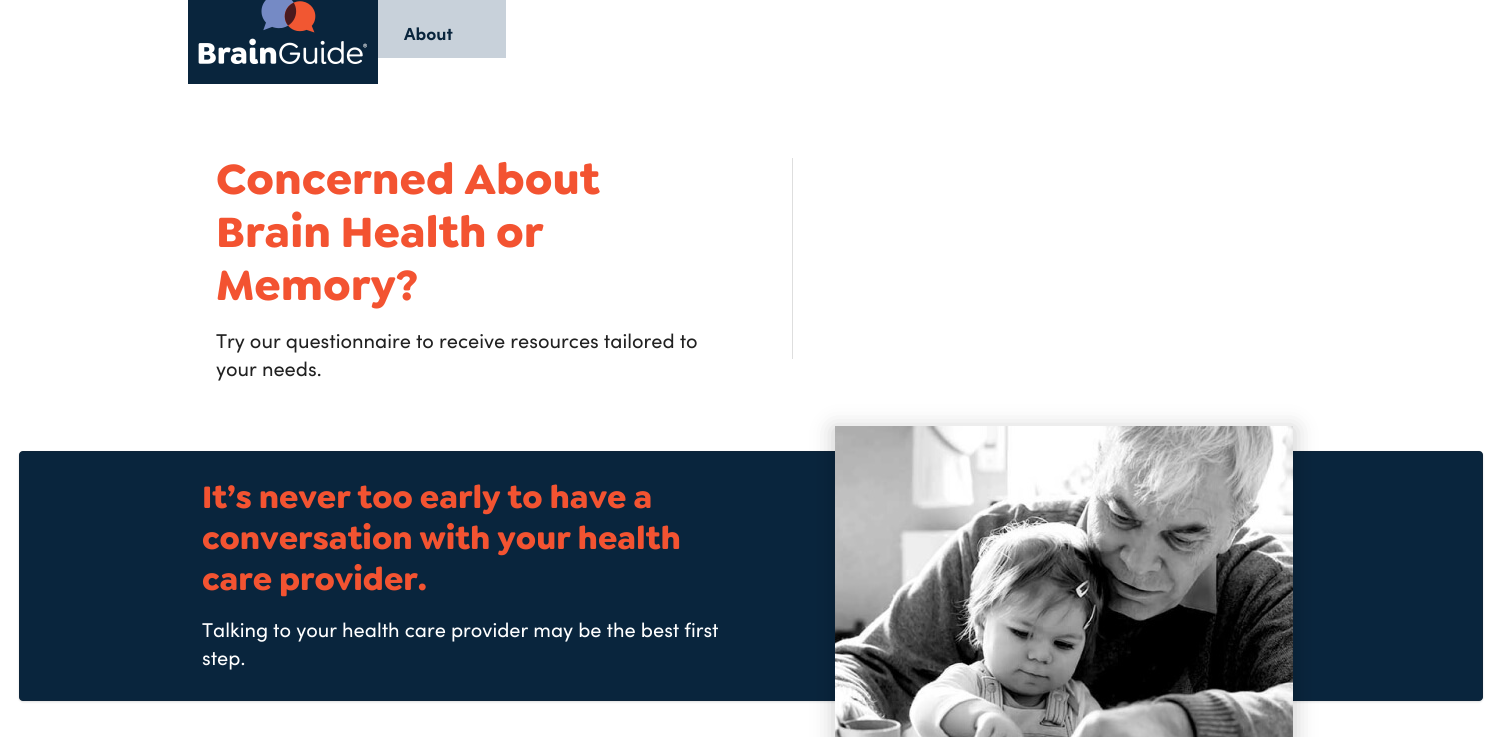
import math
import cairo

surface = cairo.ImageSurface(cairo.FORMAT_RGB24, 1502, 737)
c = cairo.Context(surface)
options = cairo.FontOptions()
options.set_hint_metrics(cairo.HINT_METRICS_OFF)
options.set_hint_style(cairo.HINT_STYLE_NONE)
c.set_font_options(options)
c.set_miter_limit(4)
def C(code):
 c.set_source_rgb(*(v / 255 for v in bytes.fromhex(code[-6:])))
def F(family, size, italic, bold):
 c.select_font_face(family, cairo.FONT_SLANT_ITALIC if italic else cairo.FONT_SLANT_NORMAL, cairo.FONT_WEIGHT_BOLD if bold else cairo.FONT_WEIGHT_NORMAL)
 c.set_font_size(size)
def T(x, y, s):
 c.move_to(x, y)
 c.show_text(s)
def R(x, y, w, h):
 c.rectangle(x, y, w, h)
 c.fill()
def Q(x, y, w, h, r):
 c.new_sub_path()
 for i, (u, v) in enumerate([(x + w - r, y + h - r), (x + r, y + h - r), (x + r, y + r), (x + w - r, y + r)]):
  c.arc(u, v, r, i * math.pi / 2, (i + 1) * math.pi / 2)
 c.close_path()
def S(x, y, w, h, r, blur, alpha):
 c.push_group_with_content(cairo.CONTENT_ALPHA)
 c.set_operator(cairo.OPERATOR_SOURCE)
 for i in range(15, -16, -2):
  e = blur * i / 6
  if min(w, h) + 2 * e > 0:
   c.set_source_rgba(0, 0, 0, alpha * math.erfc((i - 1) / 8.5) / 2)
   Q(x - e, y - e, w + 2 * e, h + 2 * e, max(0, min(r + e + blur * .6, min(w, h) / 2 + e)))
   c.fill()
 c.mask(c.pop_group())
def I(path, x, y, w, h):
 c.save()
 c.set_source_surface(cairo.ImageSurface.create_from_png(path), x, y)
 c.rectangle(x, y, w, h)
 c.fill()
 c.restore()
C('ffffff')
c.paint()
C('c8d1da')
R(378,0,128,58)
C('09253d')
R(188,0,190,84)
I('1.png',198,0,169,64)
F('Sofia',17.5,0,1)
T(404,40,'About')
F('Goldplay',45,0,1)
C('f35331')
T(216,194,'Concerned About')
T(216,247,'Brain Health or')
T(216,300,'Memory?')
F('Sofia',20,0,0)
C('212121')
T(216,348,'Try our questionnaire to receive resources tailored to')
T(216,376,'your needs.')
C('dedede')
R(792,158,1,201)
C('222426')
S(19,452,1464,250,4,1,.15)
C('09253d')
Q(19,451,1464,250,4)
c.fill()
Q(19.5,451.5,1463,249,3.5)
c.set_source_rgba(0.133,0.141,0.149,0.15)
c.set_line_width(1)
c.stroke()
F('Goldplay',33,0,1)
C('f35331')
T(202,508,'It’s never too early to have a')
T(202,549,'conversation with your health')
T(202,590,'care provider.')
F('Sofia',20,0,0)
C('ffffff')
T(202,637,'Talking to your health care provider may be the best first')
T(202,665,'step.')
C('000000')
S(833,428,462,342,0,11,.2)
I('2.png',835,426,458,311)
surface.write_to_png('o.png')
